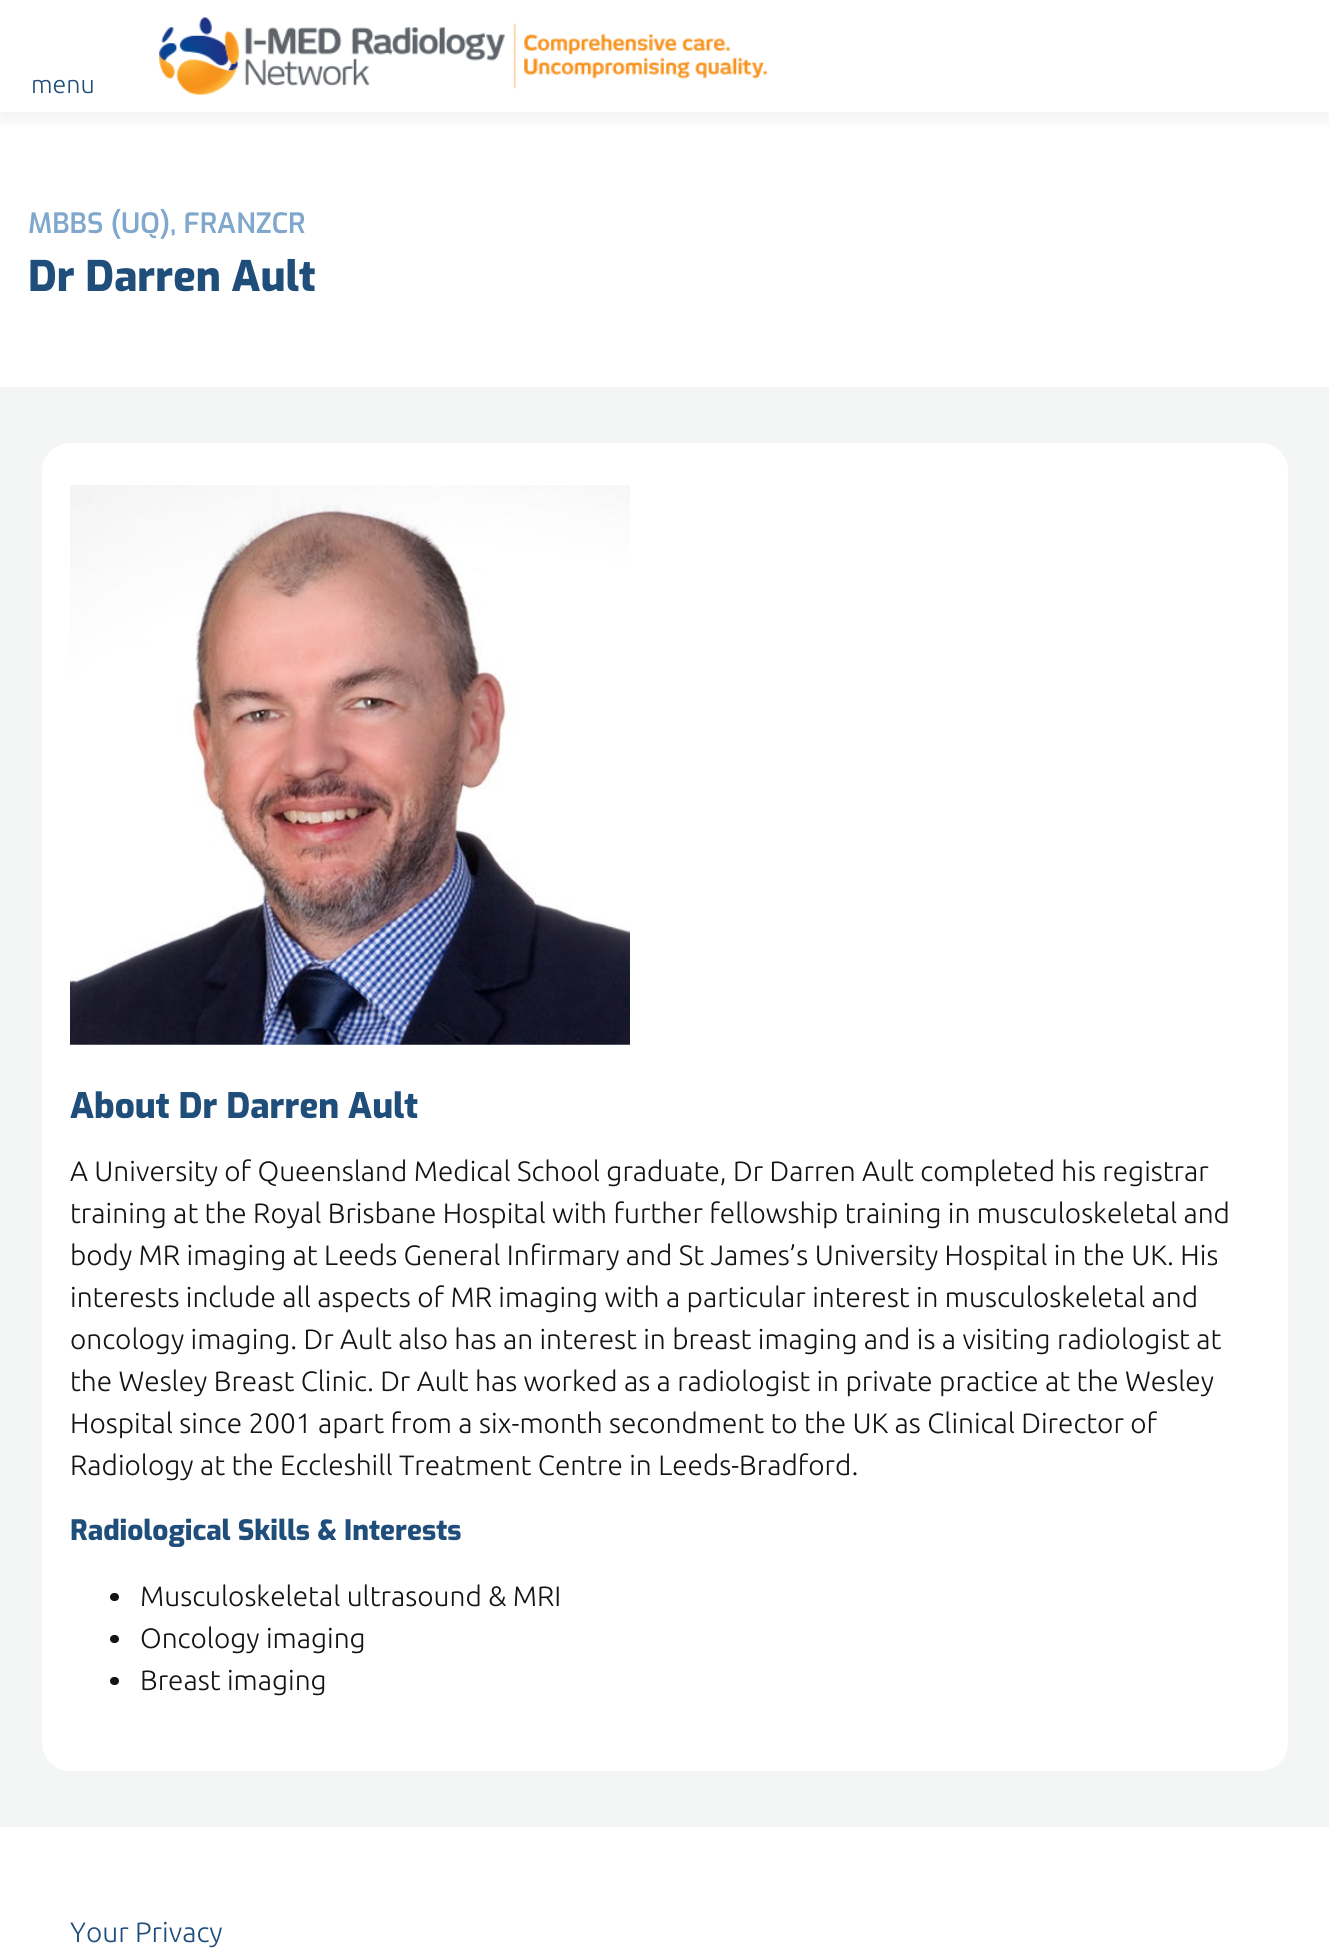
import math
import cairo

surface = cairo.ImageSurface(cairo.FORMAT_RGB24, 1329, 1955)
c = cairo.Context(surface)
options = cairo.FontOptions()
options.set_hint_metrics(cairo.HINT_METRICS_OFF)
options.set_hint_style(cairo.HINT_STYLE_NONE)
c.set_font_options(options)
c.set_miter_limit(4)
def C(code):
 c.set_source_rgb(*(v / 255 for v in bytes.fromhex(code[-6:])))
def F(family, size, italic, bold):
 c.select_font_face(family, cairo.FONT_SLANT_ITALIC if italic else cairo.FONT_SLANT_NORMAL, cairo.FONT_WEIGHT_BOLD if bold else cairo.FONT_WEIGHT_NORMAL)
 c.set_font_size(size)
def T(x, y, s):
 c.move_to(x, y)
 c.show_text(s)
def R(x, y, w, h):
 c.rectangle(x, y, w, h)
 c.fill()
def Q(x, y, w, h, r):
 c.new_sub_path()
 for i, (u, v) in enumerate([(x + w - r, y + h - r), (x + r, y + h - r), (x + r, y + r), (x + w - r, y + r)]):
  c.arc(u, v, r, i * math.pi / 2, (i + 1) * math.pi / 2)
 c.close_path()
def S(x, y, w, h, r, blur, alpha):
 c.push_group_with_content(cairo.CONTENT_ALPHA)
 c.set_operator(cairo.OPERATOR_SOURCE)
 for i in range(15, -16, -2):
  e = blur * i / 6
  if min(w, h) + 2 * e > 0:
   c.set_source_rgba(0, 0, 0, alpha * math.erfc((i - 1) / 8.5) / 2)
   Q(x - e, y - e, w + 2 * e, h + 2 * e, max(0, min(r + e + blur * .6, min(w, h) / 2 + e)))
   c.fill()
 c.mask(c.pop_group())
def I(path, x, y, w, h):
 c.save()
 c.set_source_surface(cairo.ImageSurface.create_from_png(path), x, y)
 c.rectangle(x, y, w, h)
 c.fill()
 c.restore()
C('ffffff')
c.paint()
c.save()
c.rectangle(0,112,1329,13)
c.clip()
C('131415')
S(0,4,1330,112,0,14,.08)
c.restore()
F('Ubuntu Light',25,0,0)
C('1f4e7b')
T(31,93,'menu')
I('1.png',159,17,608,78)
F('Exo SemiBold',28,0,0)
C('80a7cc')
T(28,233,'MBBS (UQ), FRANZCR')
F('Exo ExtraBold',42,0,0)
C('1f4e7b')
T(28,291,'Dr Darren Ault')
C('f4f5f5')
R(0,387,1329,1440)
C('ffffff')
Q(42,443,1246,1328,28)
c.fill()
I('2.png',70,485,560,560)
F('Exo ExtraBold',35,0,0)
C('1f4e7b')
T(70,1118,'About Dr Darren Ault')
F('Ubuntu Light',28,0,0)
C('131415')
T(70,1181,'A University of Queensland Medical School graduate, Dr Darren Ault completed his registrar')
T(70,1223,'training at the Royal Brisbane Hospital with further fellowship training in musculoskeletal and')
T(70,1265,'body MR imaging at Leeds General Infirmary and St James’s University Hospital in the UK. His')
T(70,1307,'interests include all aspects of MR imaging with a particular interest in musculoskeletal and')
T(70,1349,'oncology imaging. Dr Ault also has an interest in breast imaging and is a visiting radiologist at')
T(70,1391,'the Wesley Breast Clinic. Dr Ault has worked as a radiologist in private practice at the Wesley')
T(70,1433,'Hospital since 2001 apart from a six-month secondment to the UK as Clinical Director of')
T(70,1475,'Radiology at the Eccleshill Treatment Centre in Leeds-Bradford.')
F('Exo ExtraBold',28,0,0)
C('1f4e7b')
T(70,1540,'Radiological Skills & Interests')
C('131415')
Q(110,1593,9,8,4)
c.fill()
F('Ubuntu Light',28,0,0)
T(140,1606,'Musculoskeletal ultrasound & MRI')
Q(110,1635,9,8,4)
c.fill()
T(140,1648,'Oncology imaging')
Q(110,1677,9,8,4)
c.fill()
T(140,1690,'Breast imaging')
C('1f4e7b')
T(70,1942,'Your Privacy')
surface.write_to_png('o.png')
